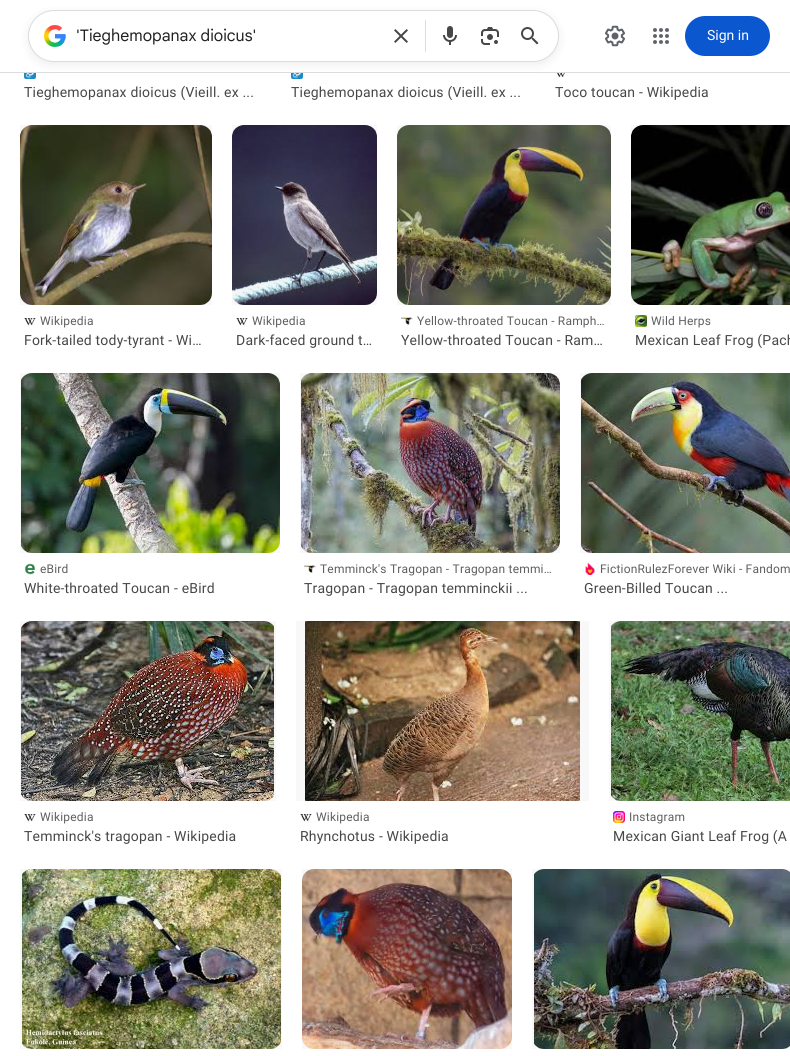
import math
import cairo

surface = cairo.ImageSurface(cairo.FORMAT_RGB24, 790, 1056)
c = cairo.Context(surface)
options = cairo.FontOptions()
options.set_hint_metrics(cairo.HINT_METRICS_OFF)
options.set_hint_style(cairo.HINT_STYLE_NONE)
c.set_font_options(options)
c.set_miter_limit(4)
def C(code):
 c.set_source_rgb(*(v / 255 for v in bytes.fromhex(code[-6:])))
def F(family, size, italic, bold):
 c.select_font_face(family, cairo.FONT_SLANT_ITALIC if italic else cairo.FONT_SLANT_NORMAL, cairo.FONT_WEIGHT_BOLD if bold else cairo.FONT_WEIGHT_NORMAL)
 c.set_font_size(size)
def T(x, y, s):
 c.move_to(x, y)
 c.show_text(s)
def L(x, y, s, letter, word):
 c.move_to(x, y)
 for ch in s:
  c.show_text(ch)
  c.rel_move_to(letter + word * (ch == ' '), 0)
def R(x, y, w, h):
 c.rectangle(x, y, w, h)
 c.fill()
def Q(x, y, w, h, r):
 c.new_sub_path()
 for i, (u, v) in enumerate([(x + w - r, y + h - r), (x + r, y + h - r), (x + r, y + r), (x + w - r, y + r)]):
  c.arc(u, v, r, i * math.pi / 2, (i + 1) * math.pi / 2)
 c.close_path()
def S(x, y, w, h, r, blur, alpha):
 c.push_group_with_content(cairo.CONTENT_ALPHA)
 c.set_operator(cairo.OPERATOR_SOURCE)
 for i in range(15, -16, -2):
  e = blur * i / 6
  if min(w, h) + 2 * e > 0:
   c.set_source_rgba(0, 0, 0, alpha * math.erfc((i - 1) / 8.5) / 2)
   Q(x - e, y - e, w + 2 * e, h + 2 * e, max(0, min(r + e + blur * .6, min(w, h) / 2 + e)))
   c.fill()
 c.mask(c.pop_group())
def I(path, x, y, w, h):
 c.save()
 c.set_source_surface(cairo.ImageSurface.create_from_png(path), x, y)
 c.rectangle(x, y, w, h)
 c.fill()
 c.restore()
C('ffffff')
c.paint()
C('dadce0')
R(0,72,790,1)
I('8.png',24,73,12,6)
I('9.png',291,73,12,6)
I('10.png',555,73,12,5)
C('1f1f1f')
S(28,13,531,52,26,5,.08)
C('ffffff')
Q(28.5,10.5,530,51,25.5)
c.fill_preserve()
C('dadce0')
c.set_line_width(1)
c.stroke()
I('1.png',44,25,22,22)
F('Google Sans',16,0,0)
C('212121')
T(76,41,'\'Tieghemopanax dioicus\'')
I('2.png',394,29,14,14)
C('dadce0')
R(425,20,1,32)
I('3.png',443,26,14,19)
I('4.png',481,27,18,18)
I('5.png',521,27,18,18)
I('6.png',605,25,20,22)
I('7.png',653,28,16,16)
C('0b57d0')
Q(685,16,85,40,20)
c.fill()
F('Roboto',14,0,0)
C('ffffff')
T(707,40,'Sign in')
C('474747')
L(24,97,'Tieghemopanax dioicus (Vieill. ex ...',.2,0)
L(291,97,'Tieghemopanax dioicus (Vieill. ex ...',.2,0)
L(555,97,'Toco toucan - Wikipedia',.2,0)
I('11.png',20,125,192,180)
c.set_source_rgba(0,0,0,0.03)
R(20,125,192,180)
I('12.png',24,318,12,8)
F('Roboto',12,0,0)
C('5e5e5e')
L(40,325,'Wikipedia',.2,0)
F('Roboto',14,0,0)
C('474747')
L(24,345,'Fork-tailed tody-tyrant - Wi…',.2,0)
I('13.png',232,125,145,180)
c.set_source_rgba(0,0,0,0.03)
R(232,125,145,180)
I('14.png',236,318,12,8)
F('Roboto',12,0,0)
C('5e5e5e')
L(252,325,'Wikipedia',.2,0)
F('Roboto',14,0,0)
C('474747')
L(236,345,'Dark-faced ground t…',.2,0)
I('15.png',397,125,214,180)
c.set_source_rgba(0,0,0,0.03)
R(397,125,214,180)
I('16.png',401,317,12,8)
F('Roboto',12,0,0)
C('5e5e5e')
L(417,325,'Yellow-throated Toucan - Ramph…',.2,0)
F('Roboto',14,0,0)
C('474747')
L(401,345,'Yellow-throated Toucan - Ram…',.2,0)
I('17.png',631,125,159,180)
c.set_source_rgba(0,0,0,0.03)
R(631,125,159,180)
I('18.png',635,315,12,12)
F('Roboto',12,0,0)
C('5e5e5e')
L(651,325,'Wild Herps',.2,0)
F('Roboto',14,0,0)
C('474747')
L(635,345,'Mexican Leaf Frog (Pach',.2,0)
I('19.png',21,373,259,180)
c.set_source_rgba(0,0,0,0.03)
R(20,373,260,180)
I('20.png',24,563,12,12)
F('Roboto',12,0,0)
C('5e5e5e')
L(40,573,'eBird',.2,0)
F('Roboto',14,0,0)
C('474747')
L(24,593,'White-throated Toucan - eBird',.2,0)
I('21.png',301,373,259,180)
c.set_source_rgba(0,0,0,0.03)
R(300,373,260,180)
I('22.png',304,565,12,8)
F('Roboto',12,0,0)
C('5e5e5e')
L(320,573,'Temminck\'s Tragopan - Tragopan temmi…',.2,0)
F('Roboto',14,0,0)
C('474747')
L(304,593,'Tragopan - Tragopan temminckii ...',.2,0)
I('23.png',581,373,209,180)
c.set_source_rgba(0,0,0,0.03)
R(580,373,210,180)
I('24.png',585,563,10,12)
F('Roboto',12,0,0)
C('5e5e5e')
L(600,573,'FictionRulezForever Wiki - Fandom',.2,0)
F('Roboto',14,0,0)
C('474747')
L(584,593,'Green-Billed Toucan ...',.2,0)
I('25.png',21,621,253,180)
c.set_source_rgba(0,0,0,0.03)
R(20,621,256,180)
I('12.png',24,814,12,8)
F('Roboto',12,0,0)
C('5e5e5e')
L(40,821,'Wikipedia',.2,0)
F('Roboto',14,0,0)
C('474747')
L(24,841,'Temminck\'s tragopan - Wikipedia',.2,0)
I('26.png',305,621,275,180)
c.set_source_rgba(0,0,0,0.03)
R(296,621,293,180)
I('14.png',300,814,12,8)
F('Roboto',12,0,0)
C('5e5e5e')
L(316,821,'Wikipedia',.2,0)
F('Roboto',14,0,0)
C('474747')
L(300,841,'Rhynchotus - Wikipedia',.2,0)
I('27.png',611,621,179,180)
c.set_source_rgba(0,0,0,0.03)
R(609,621,181,180)
I('28.png',613,811,12,12)
F('Roboto',12,0,0)
C('5e5e5e')
L(629,821,'Instagram',.2,0)
F('Roboto',14,0,0)
C('474747')
L(613,841,'Mexican Giant Leaf Frog (A',.2,0)
I('29.png',22,869,259,180)
c.set_source_rgba(0,0,0,0.03)
R(20,869,262,180)
I('30.png',302,869,210,180)
R(302,869,210,180)
I('31.png',534,869,256,180)
R(532,869,258,180)
surface.write_to_png('o.png')
